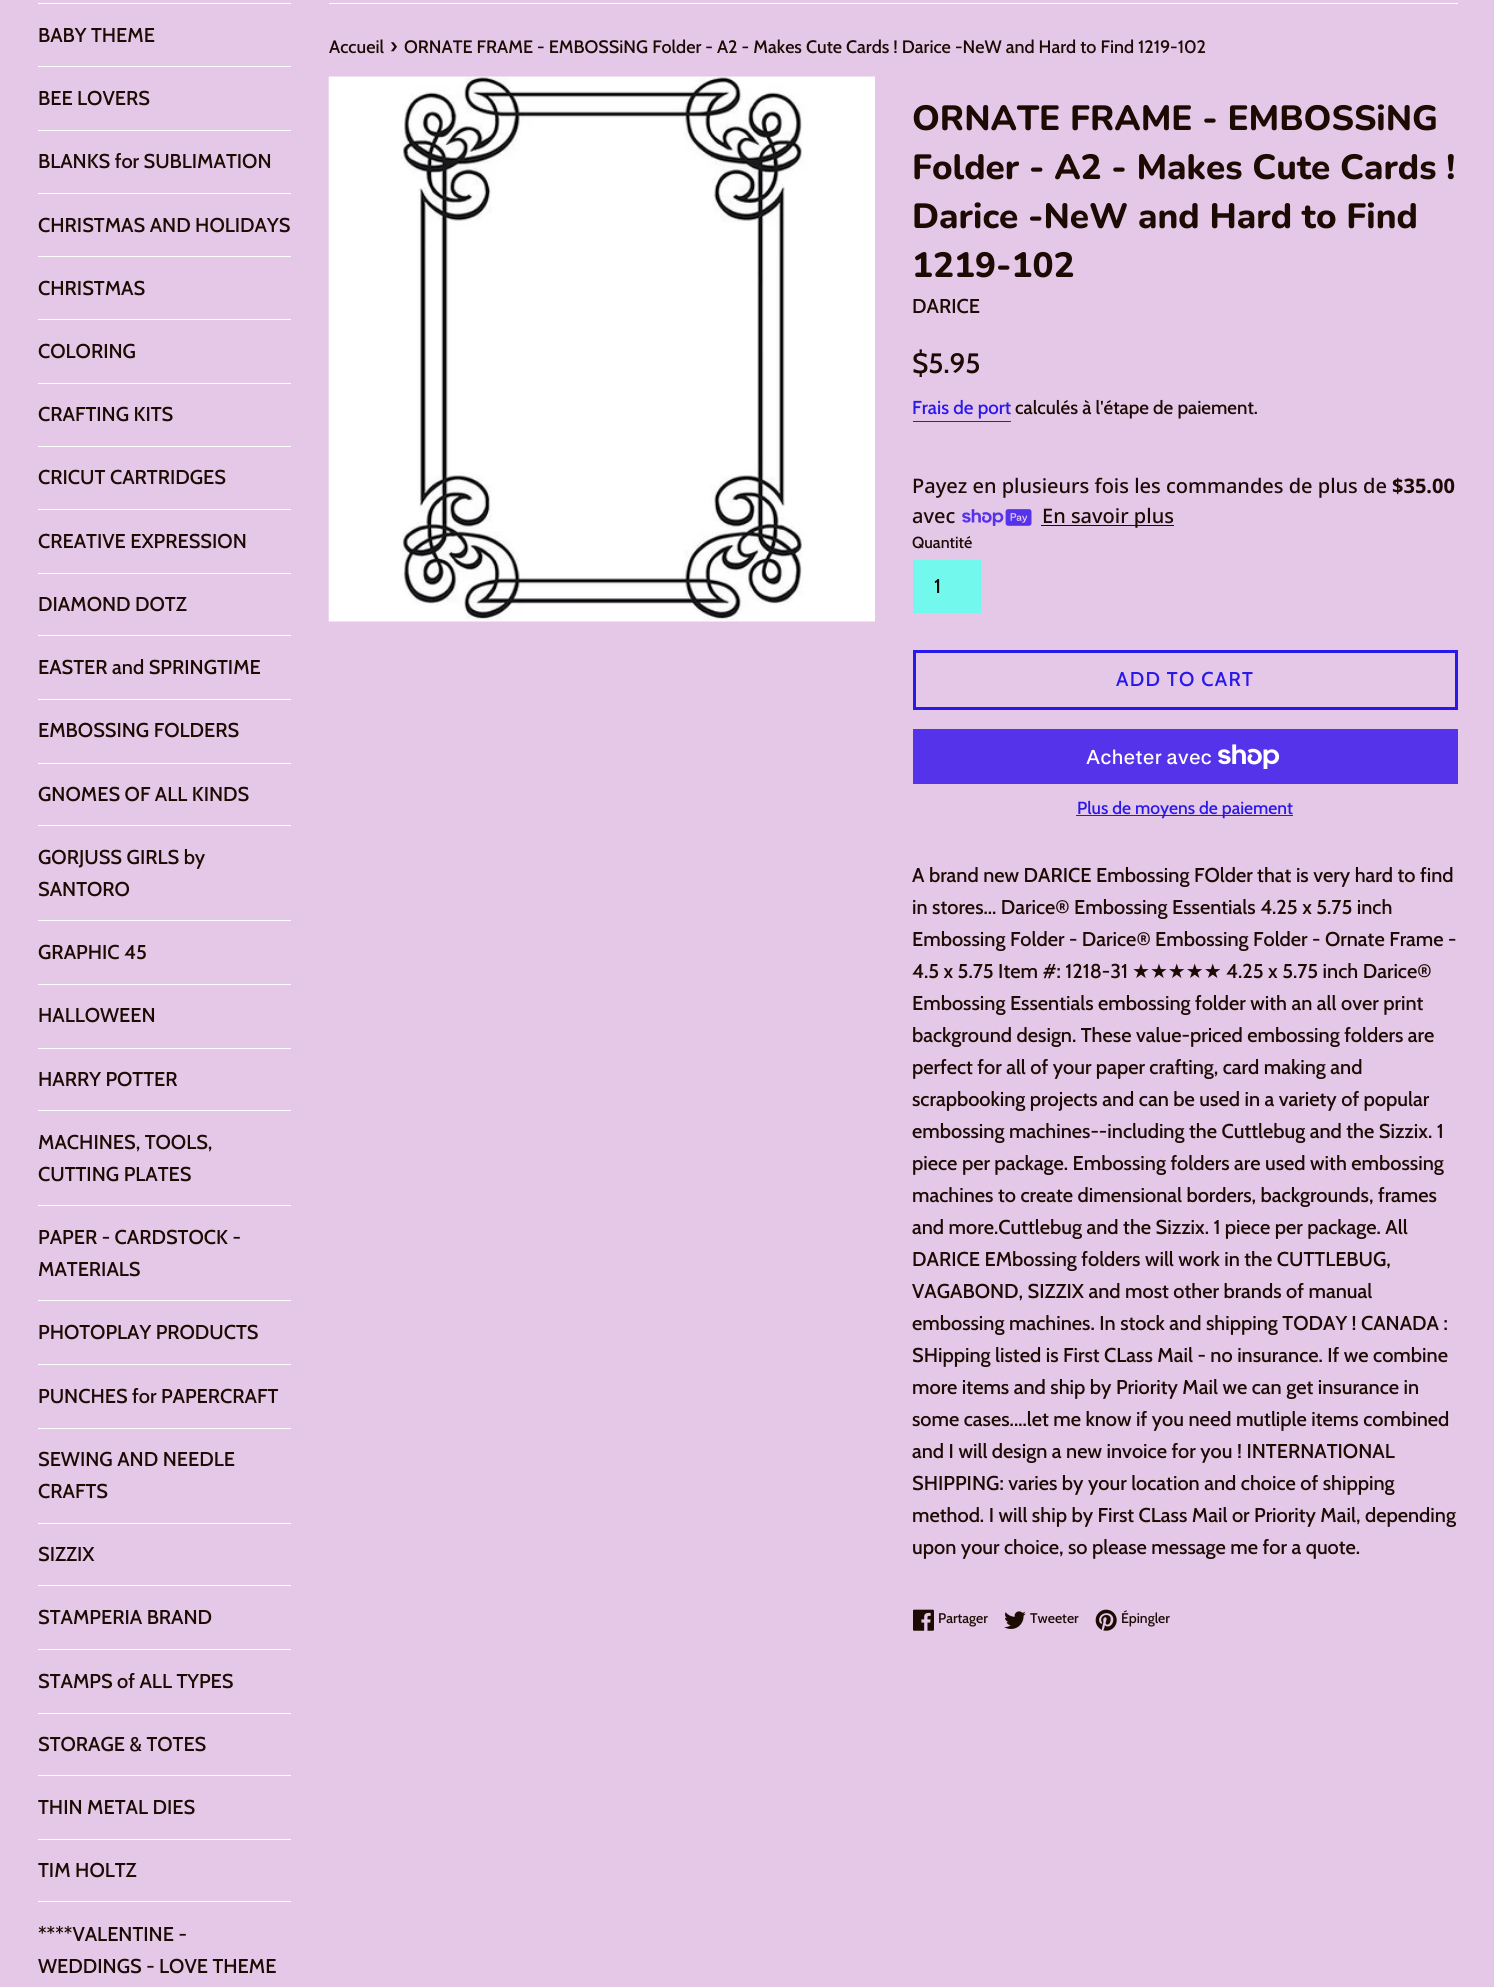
import math
import cairo

surface = cairo.ImageSurface(cairo.FORMAT_RGB24, 1494, 1987)
c = cairo.Context(surface)
options = cairo.FontOptions()
options.set_hint_metrics(cairo.HINT_METRICS_OFF)
options.set_hint_style(cairo.HINT_STYLE_NONE)
c.set_font_options(options)
c.set_miter_limit(4)
def C(code):
 c.set_source_rgb(*(v / 255 for v in bytes.fromhex(code[-6:])))
def F(family, size, italic, bold):
 c.select_font_face(family, cairo.FONT_SLANT_ITALIC if italic else cairo.FONT_SLANT_NORMAL, cairo.FONT_WEIGHT_BOLD if bold else cairo.FONT_WEIGHT_NORMAL)
 c.set_font_size(size)
def T(x, y, s):
 c.move_to(x, y)
 c.show_text(s)
def L(x, y, s, letter, word):
 c.move_to(x, y)
 for ch in s:
  c.show_text(ch)
  c.rel_move_to(letter + word * (ch == ' '), 0)
def R(x, y, w, h):
 c.rectangle(x, y, w, h)
 c.fill()
def I(path, x, y, w, h):
 c.save()
 c.set_source_surface(cairo.ImageSurface.create_from_png(path), x, y)
 c.rectangle(x, y, w, h)
 c.fill()
 c.restore()
C('e5c7e7')
c.paint()
C('ffffff')
R(38,3,253,1)
R(38,66,253,1)
F('Cabin Medium',20,0,0)
C('1c0b03')
T(38,42,'BABY THEME')
C('ffffff')
R(38,130,253,1)
C('1c0b03')
T(38,105,'BEE LOVERS')
C('ffffff')
R(38,193,253,1)
C('1c0b03')
T(38,168,'BLANKS for SUBLIMATION')
C('ffffff')
R(38,256,253,1)
C('1c0b03')
T(38,232,'CHRISTMAS AND HOLIDAYS')
C('ffffff')
R(38,319,253,1)
C('1c0b03')
T(38,295,'CHRISTMAS')
C('ffffff')
R(38,383,253,1)
C('1c0b03')
T(38,358,'COLORING')
C('ffffff')
R(38,446,253,1)
C('1c0b03')
T(38,421,'CRAFTING KITS')
C('ffffff')
R(38,509,253,1)
C('1c0b03')
T(38,484,'CRICUT CARTRIDGES')
C('ffffff')
R(38,573,253,1)
C('1c0b03')
T(38,548,'CREATIVE EXPRESSION')
C('ffffff')
R(38,635,253,1)
C('1c0b03')
T(38,611,'DIAMOND DOTZ')
C('ffffff')
R(38,699,253,1)
C('1c0b03')
T(38,674,'EASTER and SPRINGTIME')
C('ffffff')
R(38,763,253,1)
C('1c0b03')
T(38,737,'EMBOSSING FOLDERS')
C('ffffff')
R(38,825,253,1)
C('1c0b03')
T(38,801,'GNOMES OF ALL KINDS')
C('ffffff')
R(38,920,253,1)
C('1c0b03')
T(38,864,'GORJUSS GIRLS by')
T(38,896,'SANTORO')
C('ffffff')
R(38,984,253,1)
C('1c0b03')
T(38,959,'GRAPHIC 45')
C('ffffff')
R(38,1048,253,1)
C('1c0b03')
T(38,1022,'HALLOWEEN')
C('ffffff')
R(38,1110,253,1)
C('1c0b03')
T(38,1086,'HARRY POTTER')
C('ffffff')
R(38,1205,253,1)
C('1c0b03')
T(38,1149,'MACHINES, TOOLS,')
T(38,1181,'CUTTING PLATES')
C('ffffff')
R(38,1300,253,1)
C('1c0b03')
T(38,1244,'PAPER - CARDSTOCK -')
T(38,1276,'MATERIALS')
C('ffffff')
R(38,1364,253,1)
C('1c0b03')
T(38,1339,'PHOTOPLAY PRODUCTS')
C('ffffff')
R(38,1428,253,1)
C('1c0b03')
T(38,1403,'PUNCHES for PAPERCRAFT')
C('ffffff')
R(38,1523,253,1)
C('1c0b03')
T(38,1466,'SEWING AND NEEDLE')
T(38,1498,'CRAFTS')
C('ffffff')
R(38,1585,253,1)
C('1c0b03')
T(38,1561,'SIZZIX')
C('ffffff')
R(38,1649,253,1)
C('1c0b03')
T(38,1624,'STAMPERIA BRAND')
C('ffffff')
R(38,1713,253,1)
C('1c0b03')
T(38,1688,'STAMPS of ALL TYPES')
C('ffffff')
R(38,1775,253,1)
C('1c0b03')
T(38,1751,'STORAGE & TOTES')
C('ffffff')
R(38,1839,253,1)
C('1c0b03')
T(38,1814,'THIN METAL DIES')
C('ffffff')
R(38,1901,253,1)
C('1c0b03')
T(38,1877,'TIM HOLTZ')
T(38,1941,'****VALENTINE -')
T(38,1973,'WEDDINGS - LOVE THEME')
C('ffffff')
R(329,3,1129,1)
F('Cabin Medium',18,0,0)
C('1c0b03')
T(329,53,'Accueil')
F('Cabin Medium',22,0,0)
T(390,53,'›')
F('Cabin Medium',18,0,0)
T(404,53,'ORNATE FRAME - EMBOSSiNG Folder - A2 - Makes Cute Cards ! Darice -NeW and Hard to Find 1219-102')
I('1.png',328,76,547,546)
F('Nunito ExtraBold',35,0,0)
T(912,130,'ORNATE FRAME - EMBOSSiNG')
T(912,179,'Folder - A2 - Makes Cute Cards !')
T(912,228,'Darice -NeW and Hard to Find')
T(912,277,'1219-102')
F('Cabin Medium',20,0,0)
T(912,313,'DARICE')
F('Cabin Medium',28,0,0)
T(912,373,'$5.95')
F('Cabin Medium',18.75,0,0)
C('2818e9')
T(912,414,'Frais de port')
R(913,421,98,1)
C('1c0b03')
T(1015,414,'calculés à l\'étape de paiement.')
F('Noto Sans Medium',20,0,0)
T(912,493,'Payez en plusieurs fois les commandes de plus de')
F('Noto Sans',20,0,1)
T(1392,493,'$35.00')
F('Noto Sans Medium',20,0,0)
T(912,523,'avec')
I('2.png',962,509,70,17)
R(1041,525,133,1)
T(1042,523,'En savoir plus')
F('Cabin Medium',16,0,0)
T(912,548,'Quantité')
C('72f8ec')
R(913,560,68,53)
F('Cabin Medium',20,0,0)
C('1c0b03')
T(934,593,'1')
c.rectangle(914.5,651.5,542,57)
C('2818e9')
c.set_line_width(3)
c.stroke()
L(1116,686,'ADD TO CART',1.25,0)
C('5433eb')
R(913,729,545,55)
F('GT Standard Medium',20,0,0)
C('ffffff')
T(1086,764,'Acheter avec')
I('3.png',1218,744,62,25)
C('2818e9')
R(1076,815,217,1)
F('Cabin Medium',17.5,0,0)
T(1077,814,'Plus de moyens de paiement')
F('Cabin Medium',20,0,0)
C('1c0b03')
T(912,882,'A brand new DARICE Embossing FOlder that is very hard to find')
T(912,914,'in stores... Darice® Embossing Essentials 4.25 x 5.75 inch')
T(912,946,'Embossing Folder - Darice® Embossing Folder - Ornate Frame -')
T(912,978,'4.5 x 5.75 Item #: 1218-31')
F('DejaVu Sans',20,0,0)
T(1132,978,'★★★★★')
F('Cabin Medium',20,0,0)
T(1226,978,'4.25 x 5.75 inch Darice®')
T(912,1010,'Embossing Essentials embossing folder with an all over print')
T(912,1042,'background design. These value-priced embossing folders are')
T(912,1074,'perfect for all of your paper crafting, card making and')
T(912,1106,'scrapbooking projects and can be used in a variety of popular')
T(912,1138,'embossing machines--including the Cuttlebug and the Sizzix. 1')
T(912,1170,'piece per package. Embossing folders are used with embossing')
T(912,1202,'machines to create dimensional borders, backgrounds, frames')
T(912,1234,'and more.Cuttlebug and the Sizzix. 1 piece per package. All')
T(912,1266,'DARICE EMbossing folders will work in the CUTTLEBUG,')
T(912,1298,'VAGABOND, SIZZIX and most other brands of manual')
T(912,1330,'embossing machines. In stock and shipping TODAY ! CANADA :')
T(912,1362,'SHipping listed is First CLass Mail - no insurance. If we combine')
T(912,1394,'more items and ship by Priority Mail we can get insurance in')
T(912,1426,'some cases....let me know if you need mutliple items combined')
T(912,1458,'and I will design a new invoice for you ! INTERNATIONAL')
T(912,1490,'SHIPPING: varies by your location and choice of shipping')
T(912,1522,'method. I will ship by First CLass Mail or Priority Mail, depending')
T(912,1554,'upon your choice, so please message me for a quote.')
I('4.png',913,1609,21,22)
F('Cabin Medium',14,0,0)
T(938,1623,'Partager')
I('5.png',1004,1611,22,18)
T(1030,1623,'Tweeter')
I('6.png',1095,1609,22,22)
T(1121,1623,'Épingler')
surface.write_to_png('o.png')
